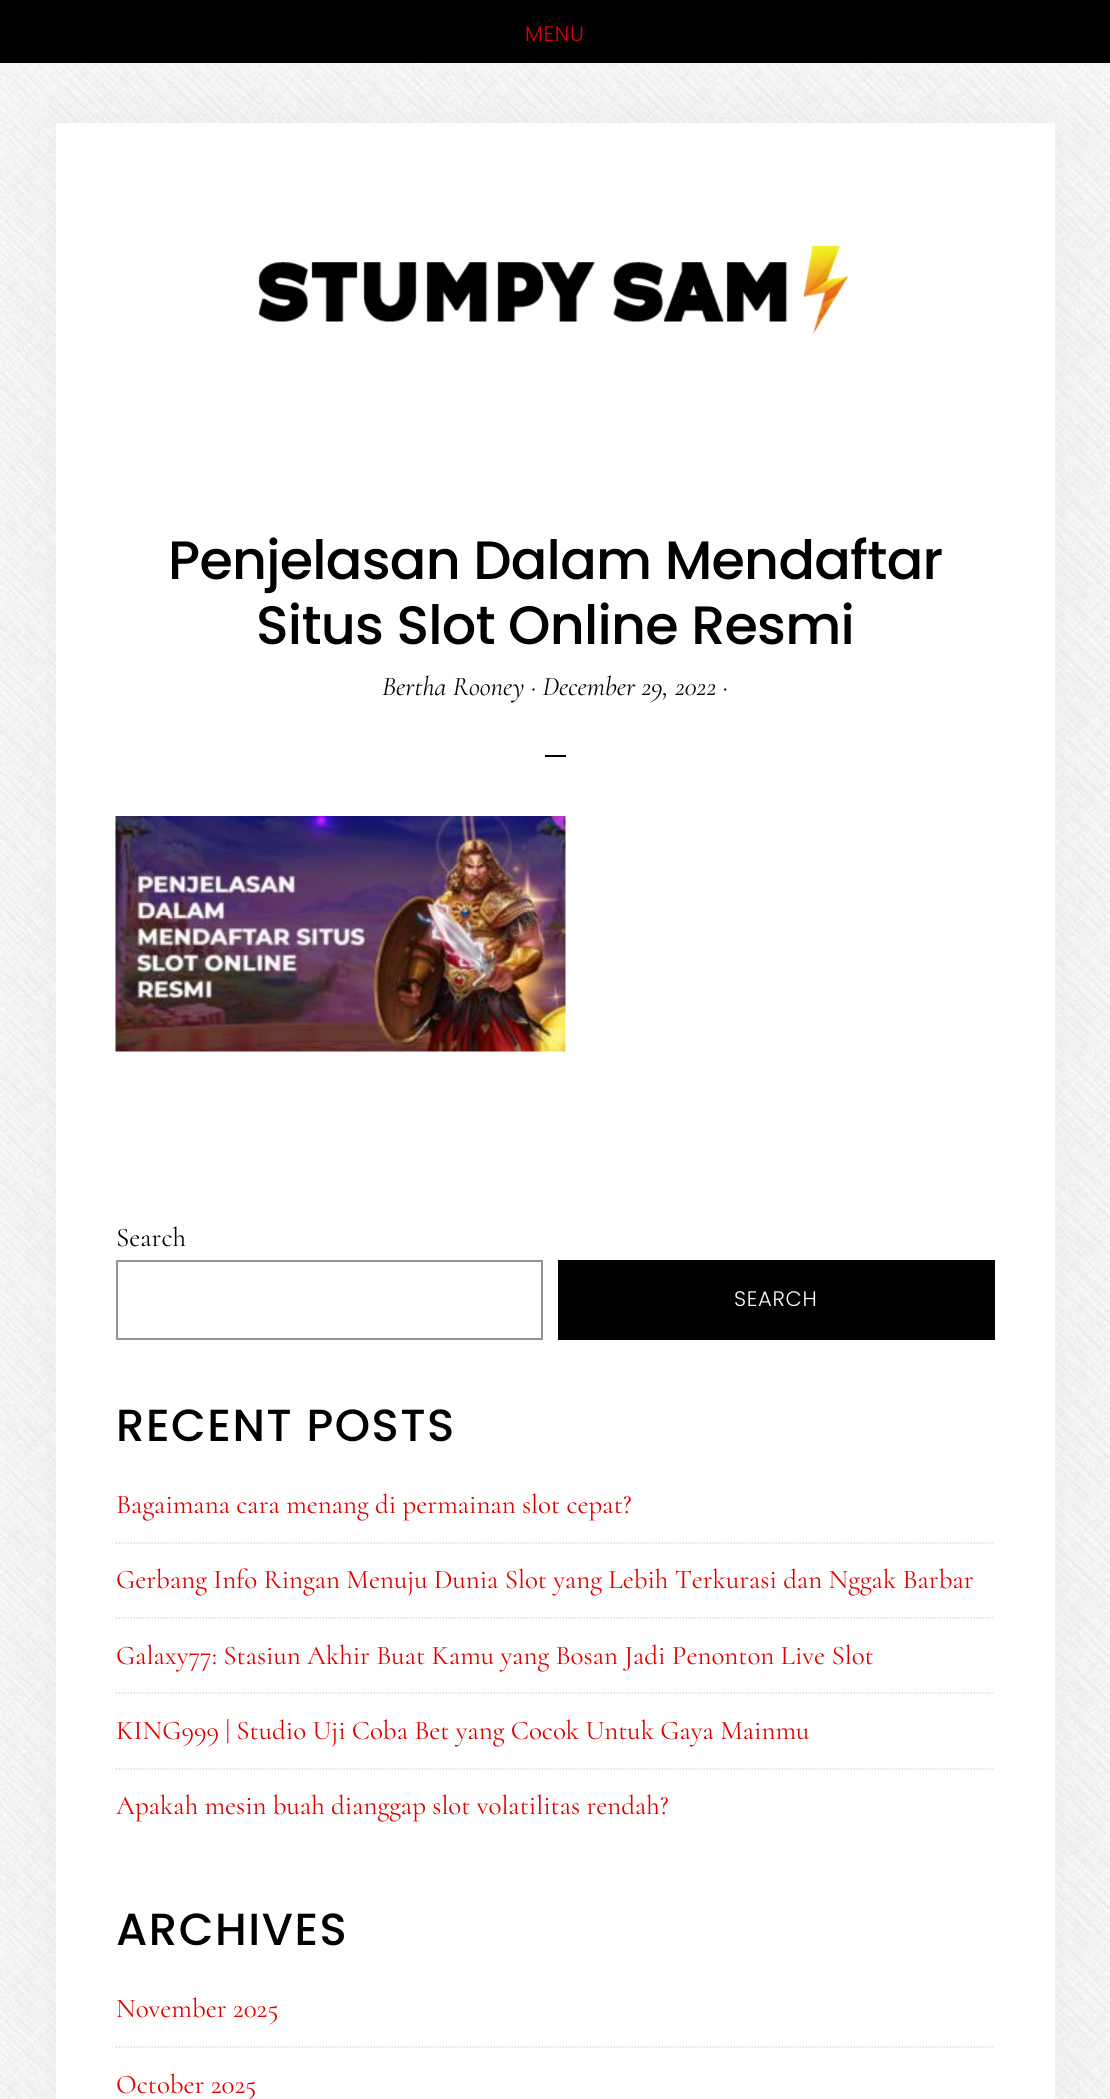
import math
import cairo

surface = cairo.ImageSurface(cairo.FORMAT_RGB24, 1110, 2099)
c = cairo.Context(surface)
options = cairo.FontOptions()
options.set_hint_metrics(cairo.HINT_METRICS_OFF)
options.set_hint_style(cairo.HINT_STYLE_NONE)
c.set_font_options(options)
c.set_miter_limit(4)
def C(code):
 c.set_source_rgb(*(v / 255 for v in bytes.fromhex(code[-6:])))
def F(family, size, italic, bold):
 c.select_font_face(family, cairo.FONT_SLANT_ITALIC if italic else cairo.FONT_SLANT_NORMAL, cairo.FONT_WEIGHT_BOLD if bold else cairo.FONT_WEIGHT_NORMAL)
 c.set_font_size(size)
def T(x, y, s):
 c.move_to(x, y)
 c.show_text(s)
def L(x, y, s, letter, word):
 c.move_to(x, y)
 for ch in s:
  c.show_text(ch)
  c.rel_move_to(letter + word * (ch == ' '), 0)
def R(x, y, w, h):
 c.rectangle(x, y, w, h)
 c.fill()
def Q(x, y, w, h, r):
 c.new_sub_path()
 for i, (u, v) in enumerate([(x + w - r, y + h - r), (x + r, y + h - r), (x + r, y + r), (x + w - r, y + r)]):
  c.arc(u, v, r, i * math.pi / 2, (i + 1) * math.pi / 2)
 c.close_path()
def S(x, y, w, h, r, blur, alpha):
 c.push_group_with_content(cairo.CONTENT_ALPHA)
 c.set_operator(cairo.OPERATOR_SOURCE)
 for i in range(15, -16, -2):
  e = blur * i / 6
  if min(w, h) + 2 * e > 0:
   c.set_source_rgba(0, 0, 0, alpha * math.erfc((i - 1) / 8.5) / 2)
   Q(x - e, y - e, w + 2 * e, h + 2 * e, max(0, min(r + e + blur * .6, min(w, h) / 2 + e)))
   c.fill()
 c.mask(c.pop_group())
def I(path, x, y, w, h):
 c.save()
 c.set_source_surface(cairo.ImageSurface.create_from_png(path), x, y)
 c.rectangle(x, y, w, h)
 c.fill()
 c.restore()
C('ffffff')
c.paint()
I('1.png',0,63,1110,2036)
C('000000')
S(56,123,999,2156,0,60,.05)
C('000000')
R(0,0,1110,63)
F('Poppins Light',21,0,0)
C('dd0000')
L(525,41,'MENU',.75,0)
C('ffffff')
R(56,123,999,1976)
I('2.png',258,245,591,89)
F('Poppins Medium',54,0,0)
C('000000')
L(168,579,'Penjelasan Dalam Mendaftar',-.75,0)
L(256,644,'Situs Slot Online Resmi',-.75,0)
F('Cormorant',27,1,0)
T(382,695,'Bertha Rooney · December 29, 2022 ·')
R(545,755,21,2)
I('3.png',115,816,451,236)
F('Cormorant',27,0,0)
T(116,1246,'Search')
c.rectangle(117,1261,425,78)
C('949494')
c.stroke()
C('000000')
R(558,1260,437,80)
F('Poppins Light',21,0,0)
C('ffffff')
L(734,1306,'SEARCH',.75,0)
F('Poppins Medium',45,0,0)
C('000000')
L(116,1441,'RECENT POSTS',1.5,0)
c.new_path()
c.move_to(115.5,1543)
c.line_to(994.5,1543)
C('dddddd')
c.set_line_width(1.5)
c.set_dash([1.5,1.5])
c.stroke()
F('Cormorant',27,0,0)
C('dd0000')
T(116,1513,'Bagaimana cara menang di permainan slot cepat?')
c.new_path()
c.move_to(115.5,1618)
c.line_to(994.5,1618)
C('dddddd')
c.stroke()
C('dd0000')
T(116,1588,'Gerbang Info Ringan Menuju Dunia Slot yang Lebih Terkurasi dan Nggak Barbar')
c.new_path()
c.move_to(115.5,1693)
c.line_to(994.5,1693)
C('dddddd')
c.stroke()
C('dd0000')
T(116,1664,'Galaxy77: Stasiun Akhir Buat Kamu yang Bosan Jadi Penonton Live Slot')
c.new_path()
c.move_to(115.5,1769)
c.line_to(994.5,1769)
C('dddddd')
c.stroke()
C('dd0000')
T(116,1739,'KING999 | Studio Uji Coba Bet yang Cocok Untuk Gaya Mainmu')
T(116,1814,'Apakah mesin buah dianggap slot volatilitas rendah?')
F('Poppins Medium',45,0,0)
C('000000')
L(116,1945,'ARCHIVES',1.5,0)
c.new_path()
c.move_to(115.5,2047)
c.line_to(994.5,2047)
C('dddddd')
c.stroke()
F('Cormorant',27,0,0)
C('dd0000')
T(116,2017,'November 2025')
T(116,2093,'October 2025')
surface.write_to_png('o.png')
